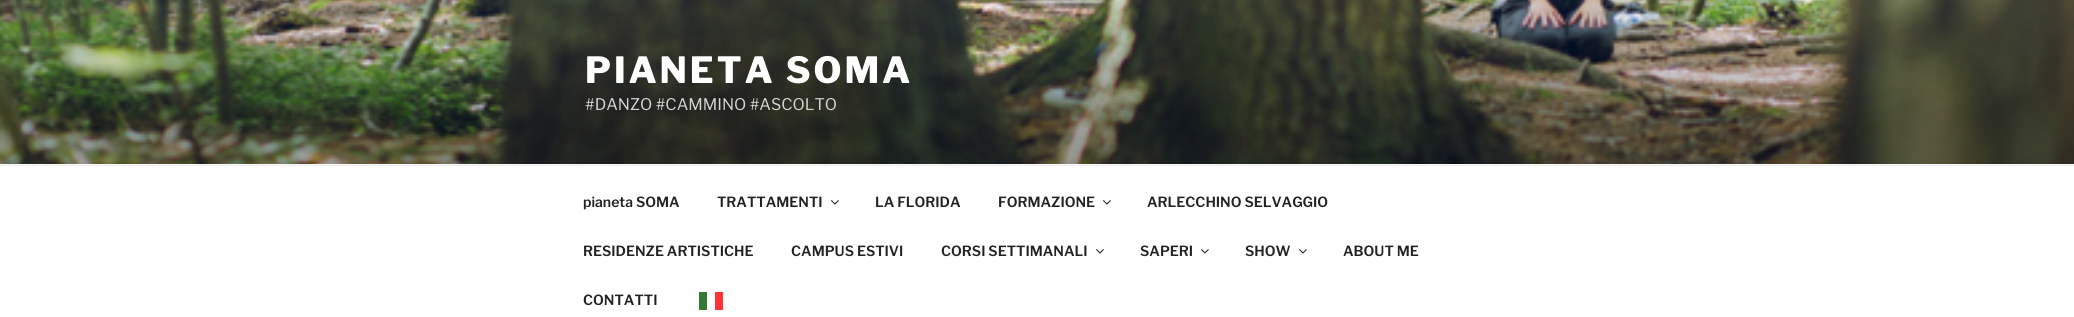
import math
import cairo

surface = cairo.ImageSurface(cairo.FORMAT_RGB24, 2074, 317)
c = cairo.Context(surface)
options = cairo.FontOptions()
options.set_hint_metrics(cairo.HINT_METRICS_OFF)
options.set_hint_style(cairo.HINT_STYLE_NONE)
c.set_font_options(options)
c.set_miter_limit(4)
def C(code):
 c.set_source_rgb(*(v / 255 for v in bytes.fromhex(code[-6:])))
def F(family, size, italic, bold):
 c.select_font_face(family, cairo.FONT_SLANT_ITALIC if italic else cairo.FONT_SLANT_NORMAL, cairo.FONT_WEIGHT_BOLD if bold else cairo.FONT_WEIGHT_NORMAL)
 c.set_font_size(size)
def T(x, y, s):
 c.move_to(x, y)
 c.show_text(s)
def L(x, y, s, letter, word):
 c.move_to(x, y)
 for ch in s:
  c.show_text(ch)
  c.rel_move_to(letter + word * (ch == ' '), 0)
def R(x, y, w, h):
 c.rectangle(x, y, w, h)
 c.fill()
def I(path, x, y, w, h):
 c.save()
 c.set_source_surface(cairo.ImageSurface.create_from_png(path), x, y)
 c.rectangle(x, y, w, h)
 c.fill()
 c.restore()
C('fafafa')
c.paint()
I('1.png',0,0,2074,164)
F('Libre Franklin Thin',36,0,0)
C('ffffff')
L(585,83,'PIANETA SOMA',2.9,0)
F('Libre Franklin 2 Thin',16,0,0)
C('d4d4d3')
T(585,110,'#DANZO #CAMMINO #ASCOLTO')
C('ffffff')
R(0,166,2074,151)
C('eeeeee')
R(0,165,2074,1)
F('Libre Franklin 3 Thin',14,0,0)
C('222222')
T(583,207,'pianeta SOMA')
T(717,207,'TRATTAMENTI')
I('2.png',831,200,8,5)
T(875,207,'LA FLORIDA')
T(998,207,'FORMAZIONE')
I('2.png',1103,200,8,5)
T(1147,207,'ARLECCHINO SELVAGGIO')
T(583,256,'RESIDENZE ARTISTICHE')
T(791,256,'CAMPUS ESTIVI')
T(941,256,'CORSI SETTIMANALI')
I('2.png',1096,249,8,5)
T(1140,256,'SAPERI')
I('2.png',1201,249,8,5)
T(1245,256,'SHOW')
I('2.png',1299,249,8,5)
T(1343,256,'ABOUT ME')
T(583,305,'CONTATTI')
C('337933')
R(699,292,8,18)
C('fd3333')
R(715,292,8,18)
surface.write_to_png('o.png')
